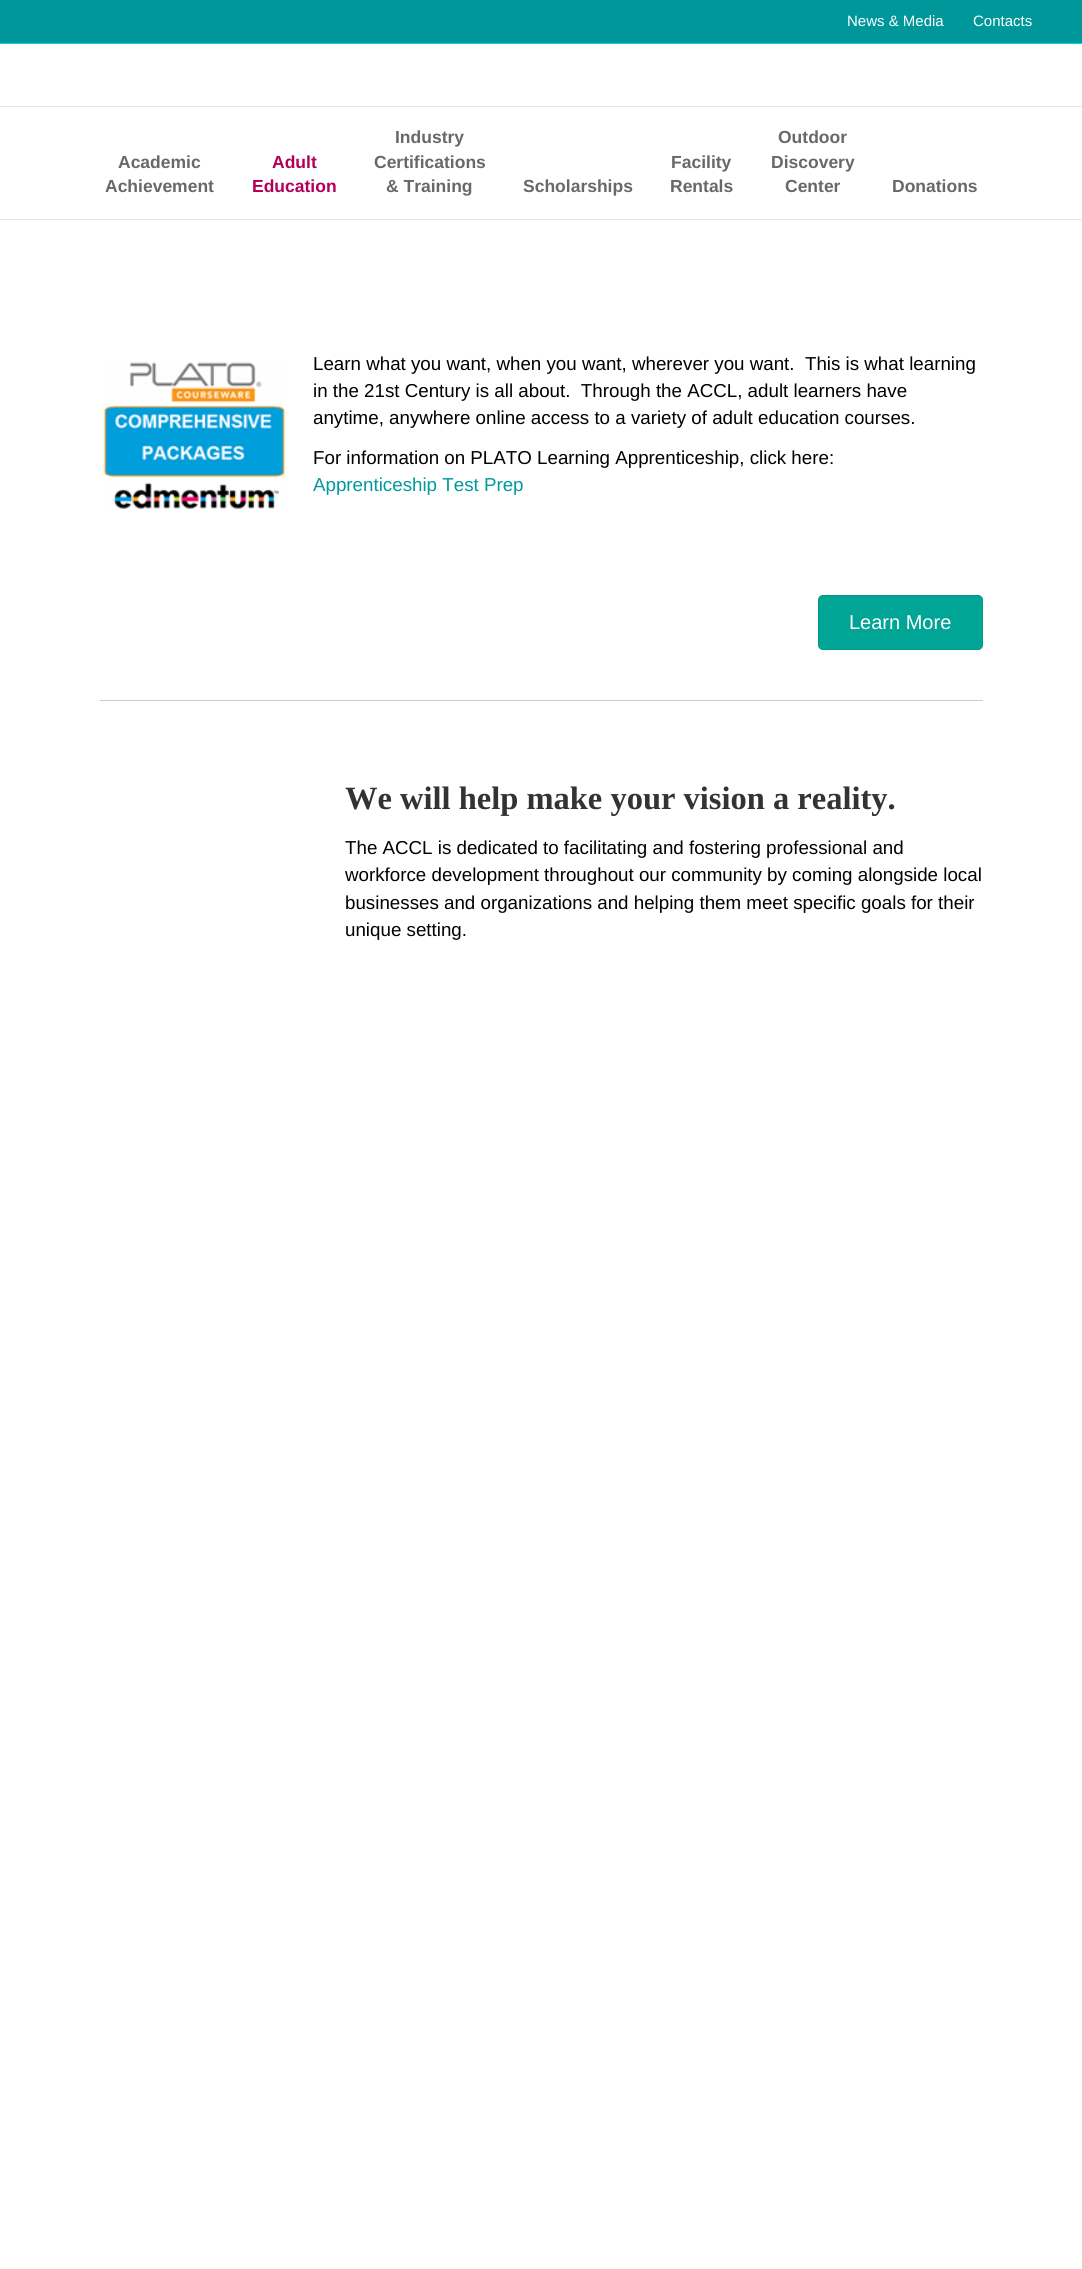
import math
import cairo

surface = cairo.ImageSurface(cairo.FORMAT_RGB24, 1082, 2269)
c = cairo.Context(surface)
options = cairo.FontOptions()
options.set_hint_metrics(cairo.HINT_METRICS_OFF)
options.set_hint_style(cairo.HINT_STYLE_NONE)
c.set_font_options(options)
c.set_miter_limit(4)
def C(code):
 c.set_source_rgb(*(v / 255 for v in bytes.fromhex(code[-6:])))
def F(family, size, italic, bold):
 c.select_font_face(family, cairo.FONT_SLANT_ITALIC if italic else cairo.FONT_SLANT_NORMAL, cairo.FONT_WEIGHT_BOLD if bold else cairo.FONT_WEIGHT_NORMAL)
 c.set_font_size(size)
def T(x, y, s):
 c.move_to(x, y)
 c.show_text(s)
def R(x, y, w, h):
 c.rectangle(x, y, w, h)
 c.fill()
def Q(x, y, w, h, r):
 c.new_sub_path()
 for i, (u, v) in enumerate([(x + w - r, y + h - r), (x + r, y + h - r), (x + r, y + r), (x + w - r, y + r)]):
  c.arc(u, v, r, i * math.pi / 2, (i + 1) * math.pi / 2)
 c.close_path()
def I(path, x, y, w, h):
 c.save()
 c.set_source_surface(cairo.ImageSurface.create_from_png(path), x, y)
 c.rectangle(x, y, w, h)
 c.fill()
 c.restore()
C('00979b')
c.paint()
C('00d8dd')
R(0,43,1082,1)
F('Liberation Sans',15,0,0)
C('ffffff')
T(847,26,'News & Media')
T(973,26,'Contacts')
R(0,44,1082,2225)
C('e6e6e6')
R(0,106,1082,1)
R(0,219,1082,1)
F('Liberation Sans',17.5,0,1)
C('686868')
T(118,168,'Academic')
T(105,192,'Achievement')
C('b20058')
T(272,168,'Adult')
T(252,192,'Education')
C('686868')
T(395,143,'Industry')
T(374,168,'Certifications')
T(386,192,'& Training')
T(523,192,'Scholarships')
T(671,168,'Facility')
T(670,192,'Rentals')
T(778,143,'Outdoor')
T(771,168,'Discovery')
T(785,192,'Center')
T(892,192,'Donations')
I('1.png',103,362,183,147)
F('Liberation Sans',18.75,0,0)
C('000000')
T(313,370,'Learn what you want, when you want, wherever you want.  This is what learning')
T(313,397,'in the 21st Century is all about.  Through the ACCL, adult learners have')
T(313,424,'anytime, anywhere online access to a variety of adult education courses.')
T(313,464,'For information on PLATO Learning Apprenticeship, click here:')
C('00999d')
T(313,491,'Apprenticeship Test Prep')
C('00a595')
Q(818.5,595.5,164,54,4.5)
c.fill_preserve()
C('009989')
c.set_line_width(1)
c.stroke()
F('Liberation Sans',20,0,0)
C('ffffff')
T(849,629,'Learn More')
C('cccccc')
R(100,700,883,1)
F('Liberation Serif',32.5,0,1)
C('333333')
T(345,809,'We will help make your vision a reality.')
F('Liberation Sans',18.75,0,0)
C('000000')
T(345,854,'The ACCL is dedicated to facilitating and fostering professional and')
T(345,881,'workforce development throughout our community by coming alongside local')
T(345,909,'businesses and organizations and helping them meet specific goals for their')
T(345,936,'unique setting.')
surface.write_to_png('o.png')
